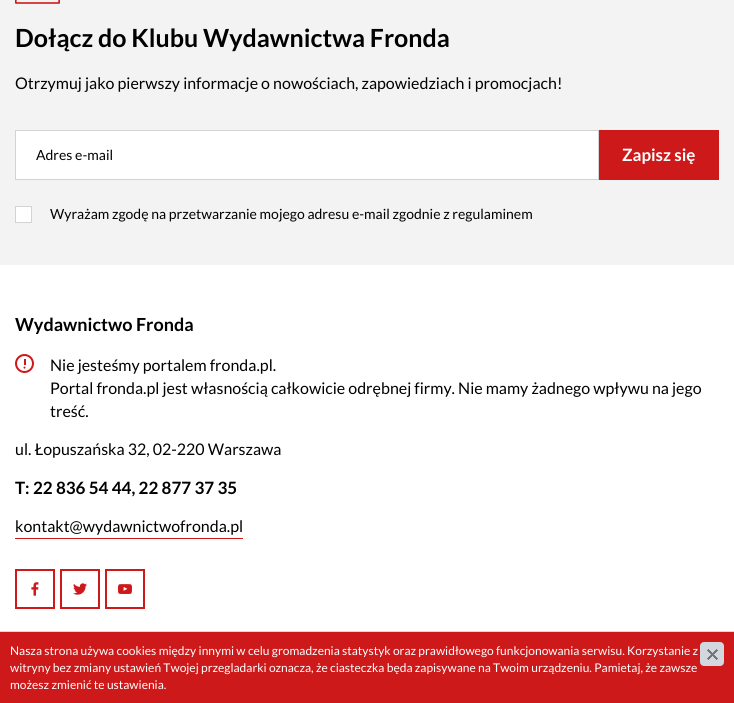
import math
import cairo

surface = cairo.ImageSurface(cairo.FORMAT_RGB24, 734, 703)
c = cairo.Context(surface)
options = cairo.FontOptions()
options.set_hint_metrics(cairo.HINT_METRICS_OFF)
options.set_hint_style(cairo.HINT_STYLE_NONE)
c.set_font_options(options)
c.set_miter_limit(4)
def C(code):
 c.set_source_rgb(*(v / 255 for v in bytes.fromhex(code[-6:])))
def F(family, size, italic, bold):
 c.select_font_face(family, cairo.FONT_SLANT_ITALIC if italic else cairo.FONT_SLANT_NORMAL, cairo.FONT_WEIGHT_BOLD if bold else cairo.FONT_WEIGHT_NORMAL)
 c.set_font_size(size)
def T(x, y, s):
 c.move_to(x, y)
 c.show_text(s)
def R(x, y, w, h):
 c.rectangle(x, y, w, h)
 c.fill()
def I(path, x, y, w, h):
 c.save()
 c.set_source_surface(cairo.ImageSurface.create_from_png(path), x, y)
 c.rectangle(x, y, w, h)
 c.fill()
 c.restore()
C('ffffff')
c.paint()
C('f3f3f3')
R(0,0,734,265)
I('1.png',15,0,45,4)
F('Lato',25,0,1)
C('000000')
T(15,47,'Dołącz do Klubu Wydawnictwa Fronda')
F('Lato',16,0,0)
T(15,89,'Otrzymuj jako pierwszy informacje o nowościach, zapowiedziach i promocjach!')
C('ffffff')
c.rectangle(15.5,130.5,583,49)
c.fill_preserve()
C('d3d3d3')
c.set_line_width(1)
c.stroke()
F('Lato',14,0,0)
C('000000')
T(36,160,'Adres e-mail')
C('cd1919')
R(599,130,120,50)
F('Lato',17,0,1)
C('ffffff')
T(622,161,'Zapisz się')
c.rectangle(15.5,206.5,16,16)
c.fill_preserve()
C('d3d3d3')
c.stroke()
F('Lato',14,0,0)
C('000000')
T(50,219,'Wyrażam zgodę na przetwarzanie mojego adresu e-mail zgodnie z regulaminem')
F('Lato',18,0,1)
T(15,331,'Wydawnictwo Fronda')
I('2.png',15,354,19,19)
F('Lato',16,0,0)
T(50,371,'Nie jesteśmy portalem fronda.pl.')
T(50,394,'Portal fronda.pl jest własnością całkowicie odrębnej firmy. Nie mamy żadnego wpływu na jego')
T(50,417,'treść.')
T(15,455,'ul. Łopuszańska 32, 02-220 Warszawa')
F('Lato',17,0,1)
T(15,494,'T: 22 836 54 44, 22 877 37 35')
C('cd1919')
R(15,538,228,1)
F('Lato',16,0,0)
C('000000')
T(15,532,'kontakt@wydawnictwofronda.pl')
I('3.png',15,569,40,40)
I('4.png',60,569,40,40)
I('5.png',105,569,40,40)
C('cd1919')
R(0,632,734,71)
C('dadada')
R(0,631,734,1)
F('Lato',12,0,0)
C('ffffff')
T(10,655,'Nasza strona używa cookies między innymi w celu gromadzenia statystyk oraz prawidłowego funkcjonowania serwisu. Korzystanie z')
I('6.png',700,642,24,24)
T(10,672,'witryny bez zmiany ustawień Twojej przegladarki oznacza, że ciasteczka będa zapisywane na Twoim urządzeniu. Pamietaj, że zawsze')
T(10,689,'możesz zmienić te ustawienia.')
surface.write_to_png('o.png')
